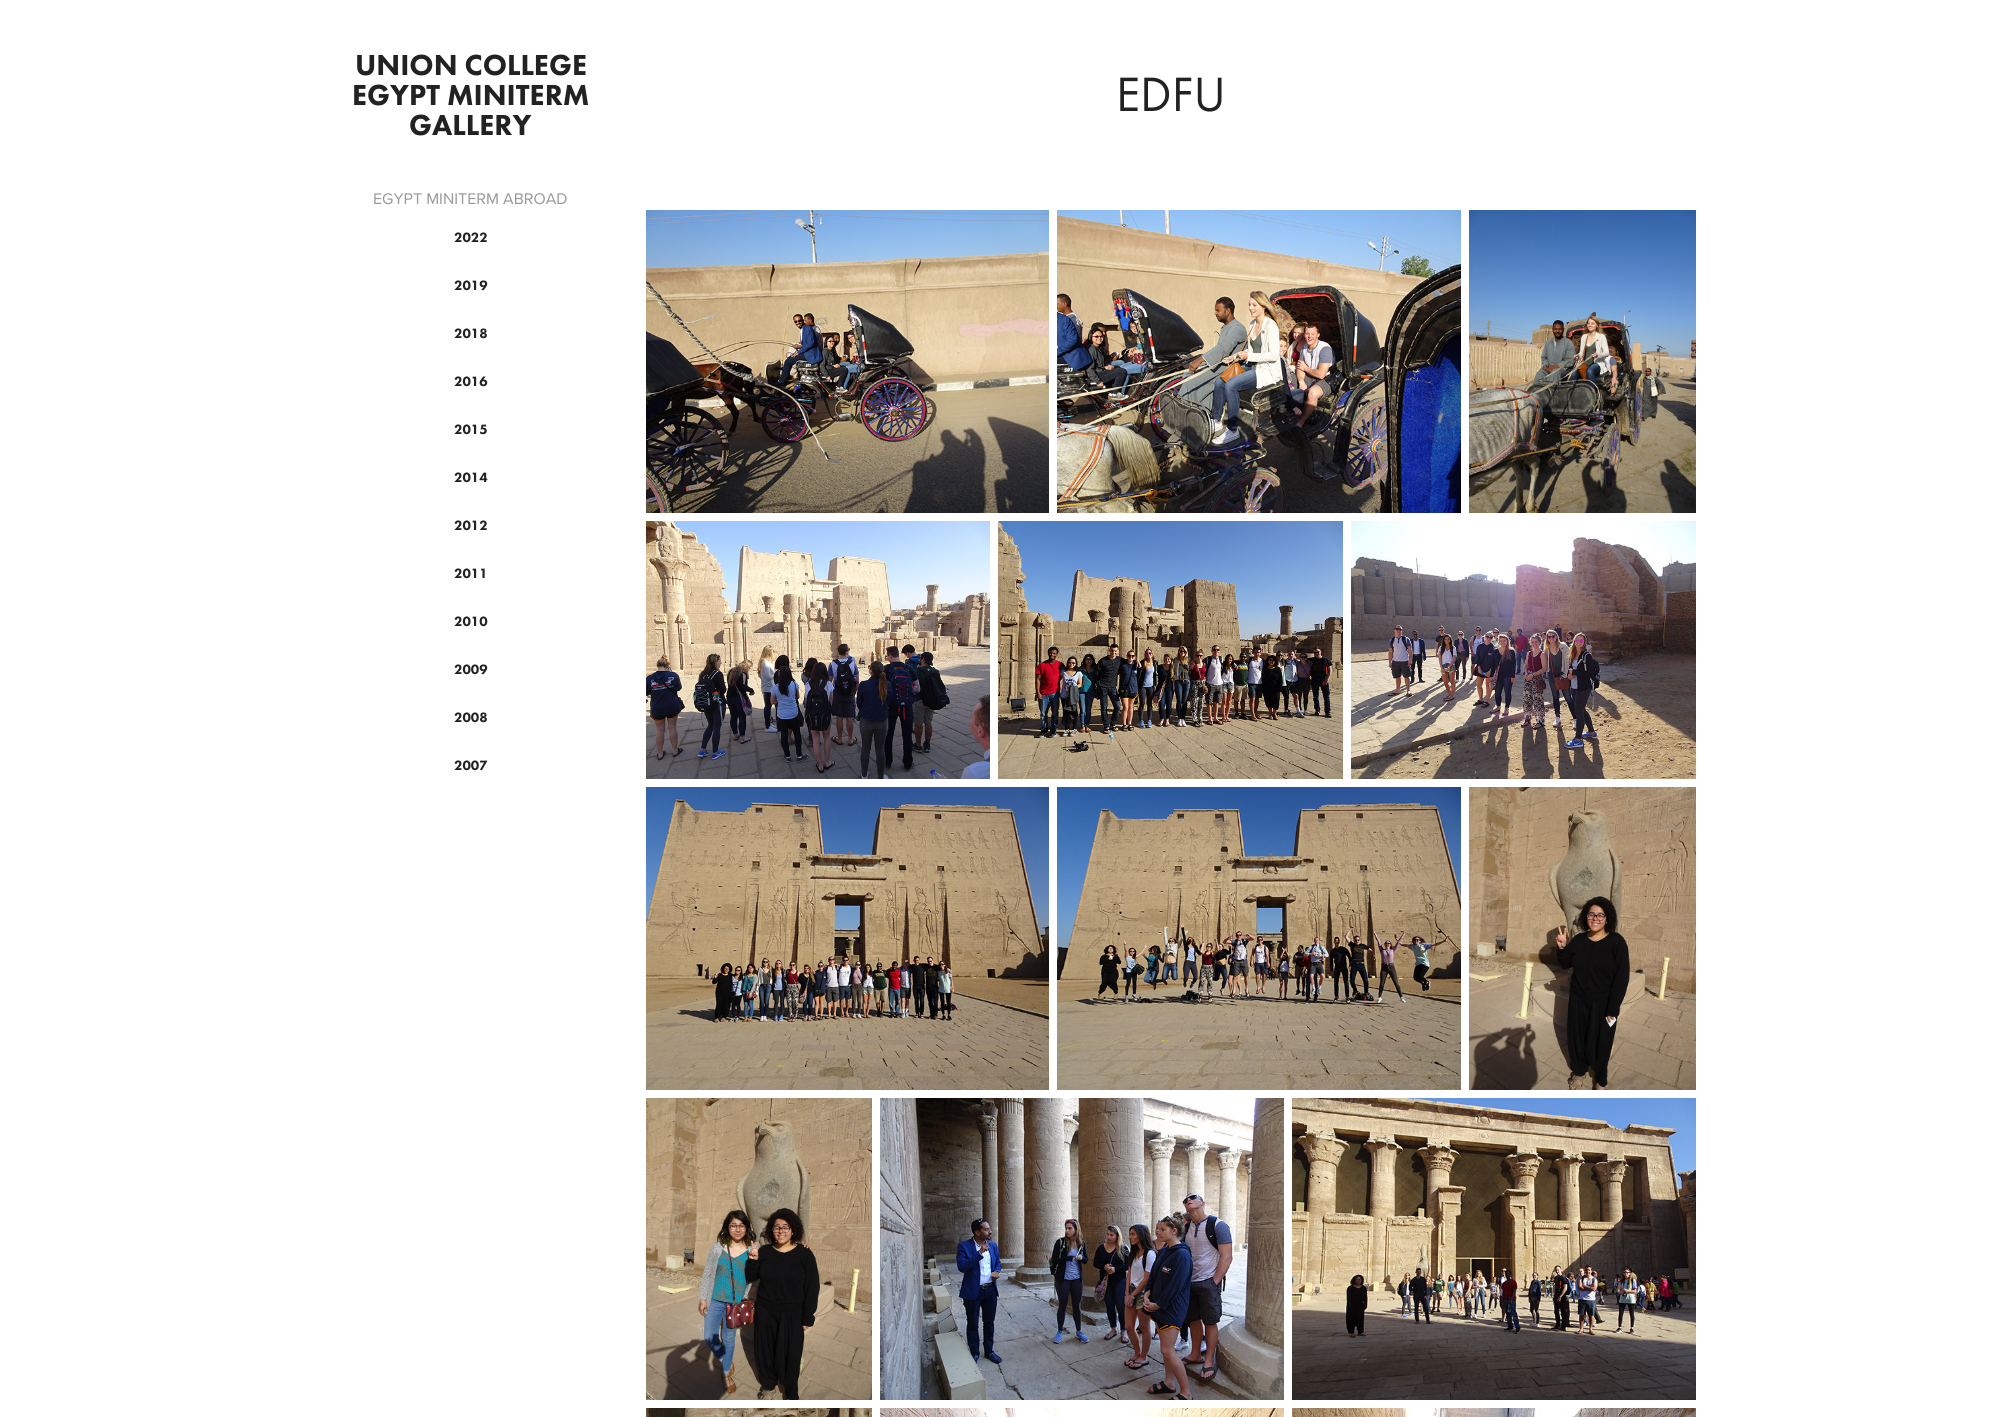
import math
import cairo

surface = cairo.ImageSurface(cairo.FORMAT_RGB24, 1991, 1417)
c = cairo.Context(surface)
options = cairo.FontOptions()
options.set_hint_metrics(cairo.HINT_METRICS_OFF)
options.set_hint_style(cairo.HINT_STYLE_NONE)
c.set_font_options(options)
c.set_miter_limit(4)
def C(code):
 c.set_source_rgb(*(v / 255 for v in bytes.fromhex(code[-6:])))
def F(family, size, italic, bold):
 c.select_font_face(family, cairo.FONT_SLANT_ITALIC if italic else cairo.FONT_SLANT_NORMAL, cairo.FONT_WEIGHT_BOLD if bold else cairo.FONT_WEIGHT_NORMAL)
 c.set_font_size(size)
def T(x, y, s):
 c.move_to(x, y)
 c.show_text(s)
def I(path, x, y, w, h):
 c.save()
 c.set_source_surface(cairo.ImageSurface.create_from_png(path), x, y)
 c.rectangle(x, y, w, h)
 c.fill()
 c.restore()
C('ffffff')
c.paint()
F('Futura PT Black',30,0,0)
C('222222')
T(355,75,'UNION COLLEGE')
T(352,105,'EGYPT MINITERM')
T(409,135,'GALLERY')
F('Proxima Nova',16,0,0)
C('999999')
T(373,204,'EGYPT MINITERM ABROAD')
F('Futura PT Black',14,0,0)
C('222222')
T(454,242,'2022')
T(454,290,'2019')
T(454,338,'2018')
T(454,386,'2016')
T(454,434,'2015')
T(454,482,'2014')
T(454,530,'2012')
T(454,578,'2011')
T(454,626,'2010')
T(454,674,'2009')
T(454,722,'2008')
T(454,770,'2007')
F('Futura PT',50,0,0)
T(1116,111,'EDFU')
I('1.png',646,210,403,303)
I('2.png',1057,210,404,303)
I('3.png',1469,210,227,303)
I('4.png',646,521,344,258)
I('5.png',998,521,345,258)
I('6.png',1351,521,345,258)
I('7.png',646,787,403,303)
I('8.png',1057,787,404,303)
I('9.png',1469,787,227,303)
I('10.png',646,1098,226,302)
I('11.png',880,1098,404,302)
I('12.png',1292,1098,404,302)
I('13.png',646,1408,226,9)
I('14.png',880,1408,404,9)
I('15.png',1292,1408,404,9)
surface.write_to_png('o.png')
